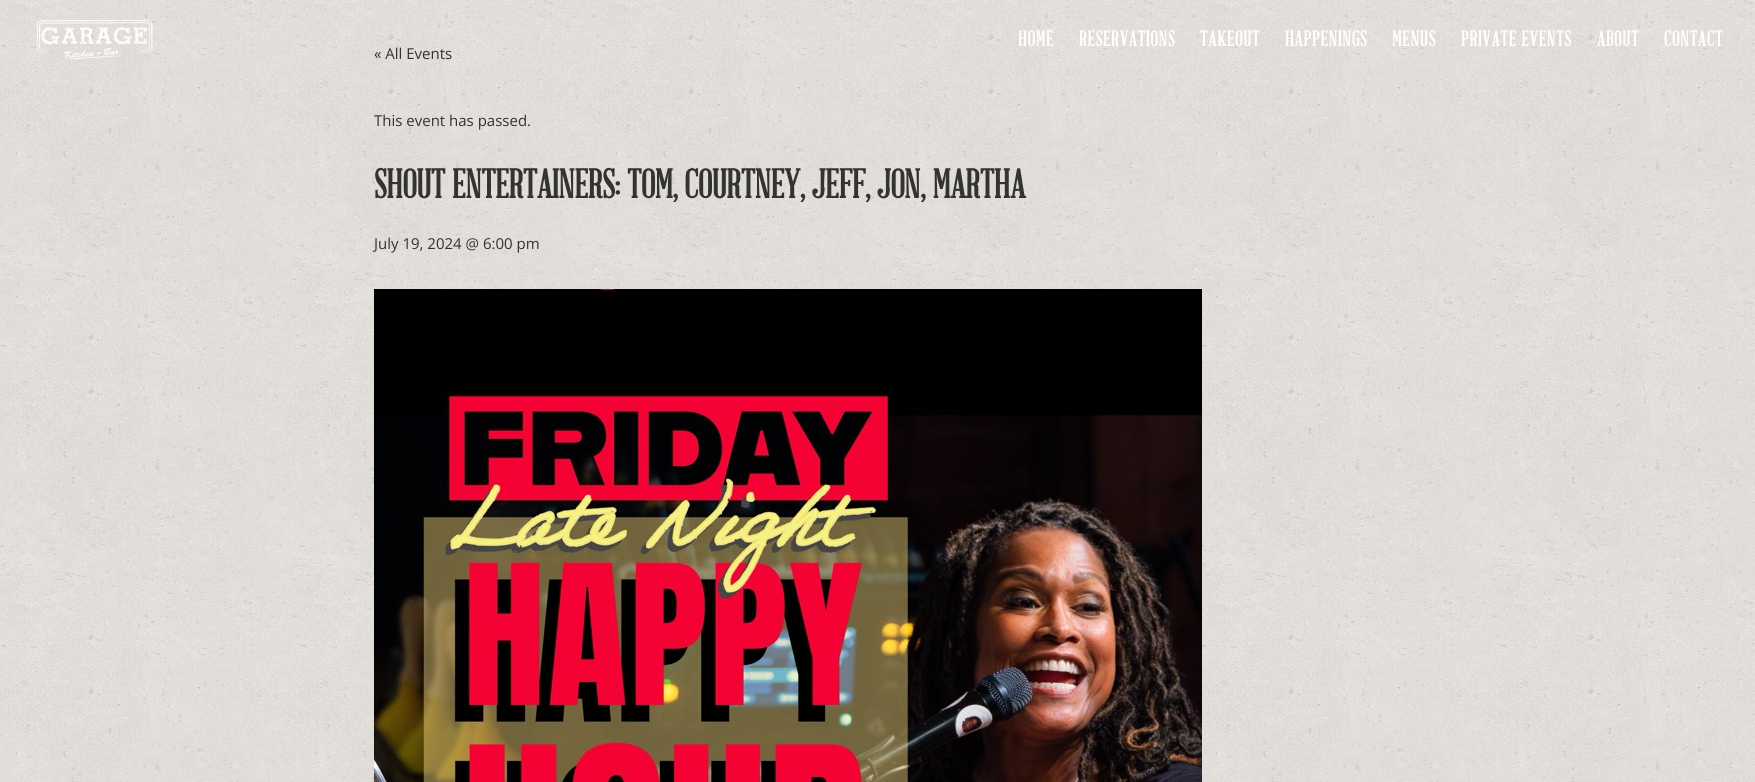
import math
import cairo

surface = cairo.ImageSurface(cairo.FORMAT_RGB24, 1755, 782)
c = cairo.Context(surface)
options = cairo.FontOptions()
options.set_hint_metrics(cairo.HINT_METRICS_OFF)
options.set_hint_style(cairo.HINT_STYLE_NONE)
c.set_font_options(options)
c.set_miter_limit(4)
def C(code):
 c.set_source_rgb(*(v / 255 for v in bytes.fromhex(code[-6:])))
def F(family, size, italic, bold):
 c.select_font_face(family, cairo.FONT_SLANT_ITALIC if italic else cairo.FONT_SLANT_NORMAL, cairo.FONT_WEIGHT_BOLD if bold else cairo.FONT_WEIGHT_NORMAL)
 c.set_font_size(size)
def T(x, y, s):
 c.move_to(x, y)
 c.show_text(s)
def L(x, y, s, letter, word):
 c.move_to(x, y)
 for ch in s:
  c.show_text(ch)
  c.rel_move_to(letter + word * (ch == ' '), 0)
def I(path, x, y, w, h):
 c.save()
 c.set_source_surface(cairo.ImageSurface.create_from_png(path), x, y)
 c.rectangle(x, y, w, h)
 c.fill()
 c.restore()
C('ffffff')
c.paint()
I('1.png',0,0,1755,782)
I('2.png',36,20,117,40)
F('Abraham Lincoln',21,0,1)
C('ffffff')
L(1018,46,'HOME',1,0)
L(1079,46,'RESERVATIONS',1,0)
L(1200,46,'TAKEOUT',1,0)
L(1285,46,'HAPPENINGS',1,0)
L(1392,46,'MENUS',1,0)
L(1461,46,'PRIVATE EVENTS',1,0)
L(1597,46,'ABOUT',1,0)
L(1664,46,'CONTACT',1,0)
F('Open Sans',15,0,0)
C('333333')
T(374,59,'« All Events')
T(374,126,'This event has passed.')
F('Abraham Lincoln',40,0,1)
T(374,198,'SHOUT ENTERTAINERS: TOM, COURTNEY, JEFF, JON, MARTHA')
F('Open Sans',15,0,0)
T(374,249,'July 19, 2024 @ 6:00 pm')
I('3.png',374,289,828,493)
surface.write_to_png('o.png')
